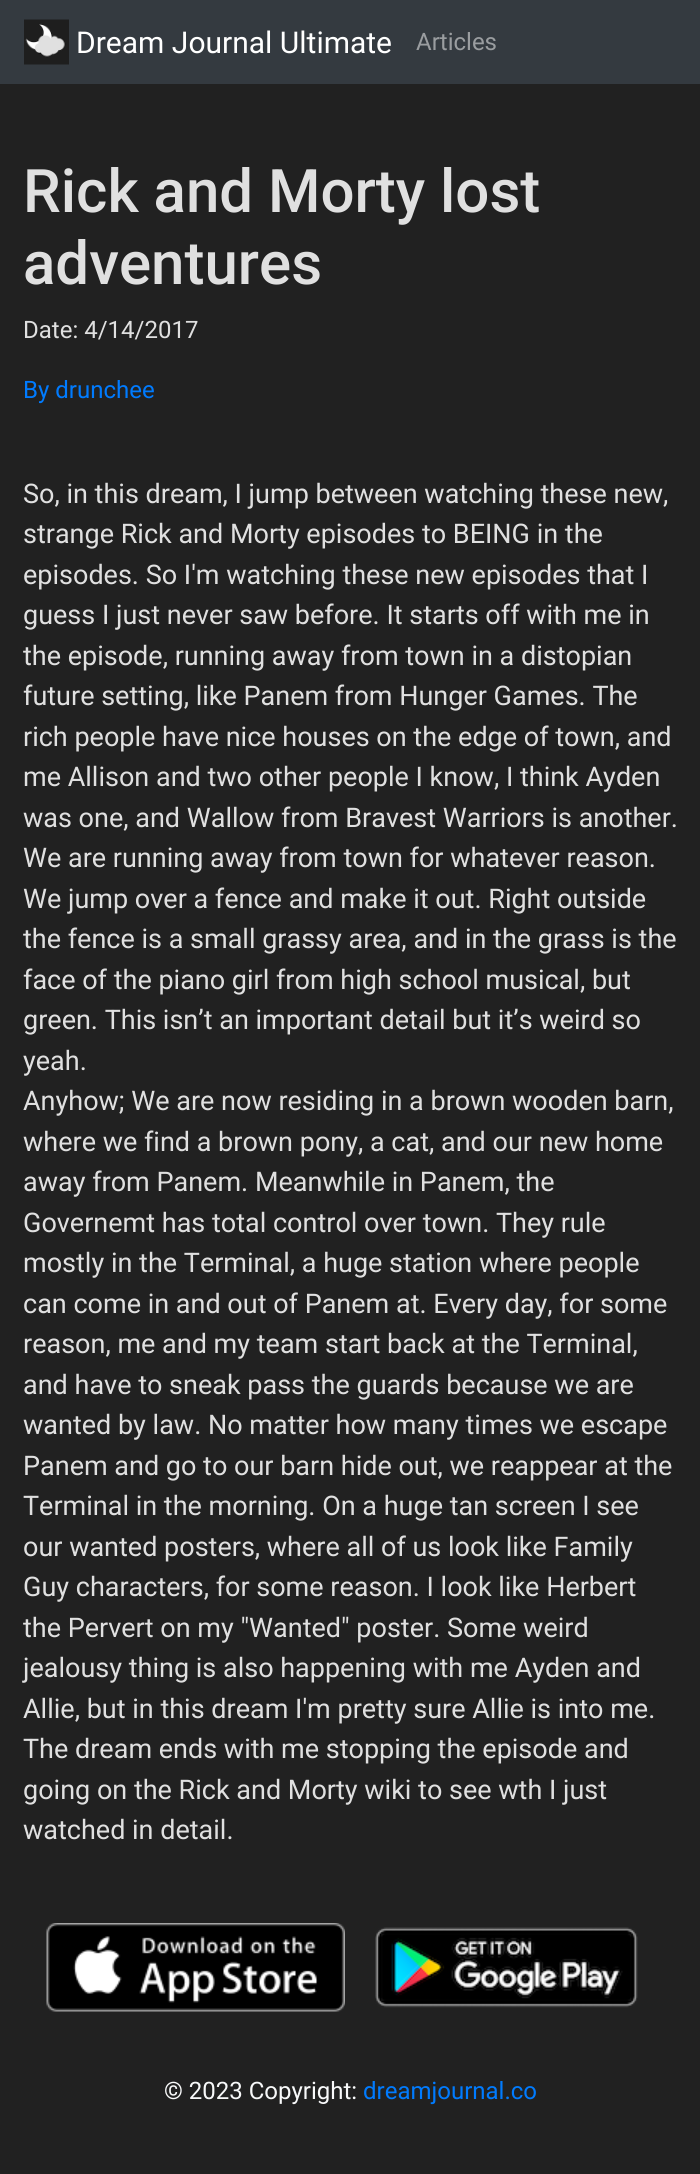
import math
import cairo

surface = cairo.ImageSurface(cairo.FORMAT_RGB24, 700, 2174)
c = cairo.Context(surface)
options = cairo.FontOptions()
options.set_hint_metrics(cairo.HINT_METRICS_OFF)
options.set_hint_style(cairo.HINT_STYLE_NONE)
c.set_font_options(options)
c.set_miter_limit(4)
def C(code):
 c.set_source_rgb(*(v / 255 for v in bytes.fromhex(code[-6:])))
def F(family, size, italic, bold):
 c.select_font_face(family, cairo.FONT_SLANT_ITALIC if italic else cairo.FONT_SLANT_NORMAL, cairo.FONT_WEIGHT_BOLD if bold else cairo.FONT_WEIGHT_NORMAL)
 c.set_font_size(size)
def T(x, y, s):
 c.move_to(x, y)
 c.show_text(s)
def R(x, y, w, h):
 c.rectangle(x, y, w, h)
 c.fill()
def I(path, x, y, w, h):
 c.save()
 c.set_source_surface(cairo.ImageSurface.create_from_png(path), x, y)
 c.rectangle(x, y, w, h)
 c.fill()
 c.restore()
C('212121')
c.paint()
C('343a40')
R(0,0,700,84)
I('1.png',24,19,45,46)
F('Roboto',30,0,0)
C('ffffff')
T(76,53,'Dream Journal Ultimate')
F('Roboto',24,0,0)
C('9a9da0')
T(416,50,'Articles')
F('Roboto Medium',60,0,0)
C('e0e0e0')
T(23,212,'Rick and Morty lost')
T(23,284,'adventures')
F('Roboto',24,0,0)
T(23,338,'Date: 4/14/2017')
C('007bff')
T(23,398,'By drunchee')
F('Roboto',27,0,0)
C('e0e0e0')
T(23,503,'So, in this dream, I jump between watching these new,')
T(23,543,'strange Rick and Morty episodes to BEING in the')
T(23,584,'episodes. So I\'m watching these new episodes that I')
T(23,624,'guess I just never saw before. It starts off with me in')
T(23,665,'the episode, running away from town in a distopian')
T(23,705,'future setting, like Panem from Hunger Games. The')
T(23,746,'rich people have nice houses on the edge of town, and')
T(23,786,'me Allison and two other people I know, I think Ayden')
T(23,827,'was one, and Wallow from Bravest Warriors is another.')
T(23,867,'We are running away from town for whatever reason.')
T(23,908,'We jump over a fence and make it out. Right outside')
T(23,948,'the fence is a small grassy area, and in the grass is the')
T(23,989,'face of the piano girl from high school musical, but')
T(23,1029,'green. This isn’t an important detail but it’s weird so')
T(23,1070,'yeah.')
T(23,1110,'Anyhow; We are now residing in a brown wooden barn,')
T(23,1151,'where we find a brown pony, a cat, and our new home')
T(23,1191,'away from Panem. Meanwhile in Panem, the')
T(23,1232,'Governemt has total control over town. They rule')
T(23,1272,'mostly in the Terminal, a huge station where people')
T(23,1313,'can come in and out of Panem at. Every day, for some')
T(23,1353,'reason, me and my team start back at the Terminal,')
T(23,1394,'and have to sneak pass the guards because we are')
T(23,1434,'wanted by law. No matter how many times we escape')
T(23,1475,'Panem and go to our barn hide out, we reappear at the')
T(23,1515,'Terminal in the morning. On a huge tan screen I see')
T(23,1556,'our wanted posters, where all of us look like Family')
T(23,1596,'Guy characters, for some reason. I look like Herbert')
T(23,1637,'the Pervert on my "Wanted" poster. Some weird')
T(23,1677,'jealousy thing is also happening with me Ayden and')
T(23,1718,'Allie, but in this dream I\'m pretty sure Allie is into me.')
T(23,1758,'The dream ends with me stopping the episode and')
T(23,1799,'going on the Rick and Morty wiki to see wth I just')
T(23,1839,'watched in detail.')
I('2.png',46,1923,299,89)
I('3.png',375,1927,263,81)
F('Roboto',24,0,0)
C('f8f9fa')
T(164,2099,'© 2023 Copyright:')
C('007bff')
T(363,2099,'dreamjournal.co')
surface.write_to_png('o.png')
